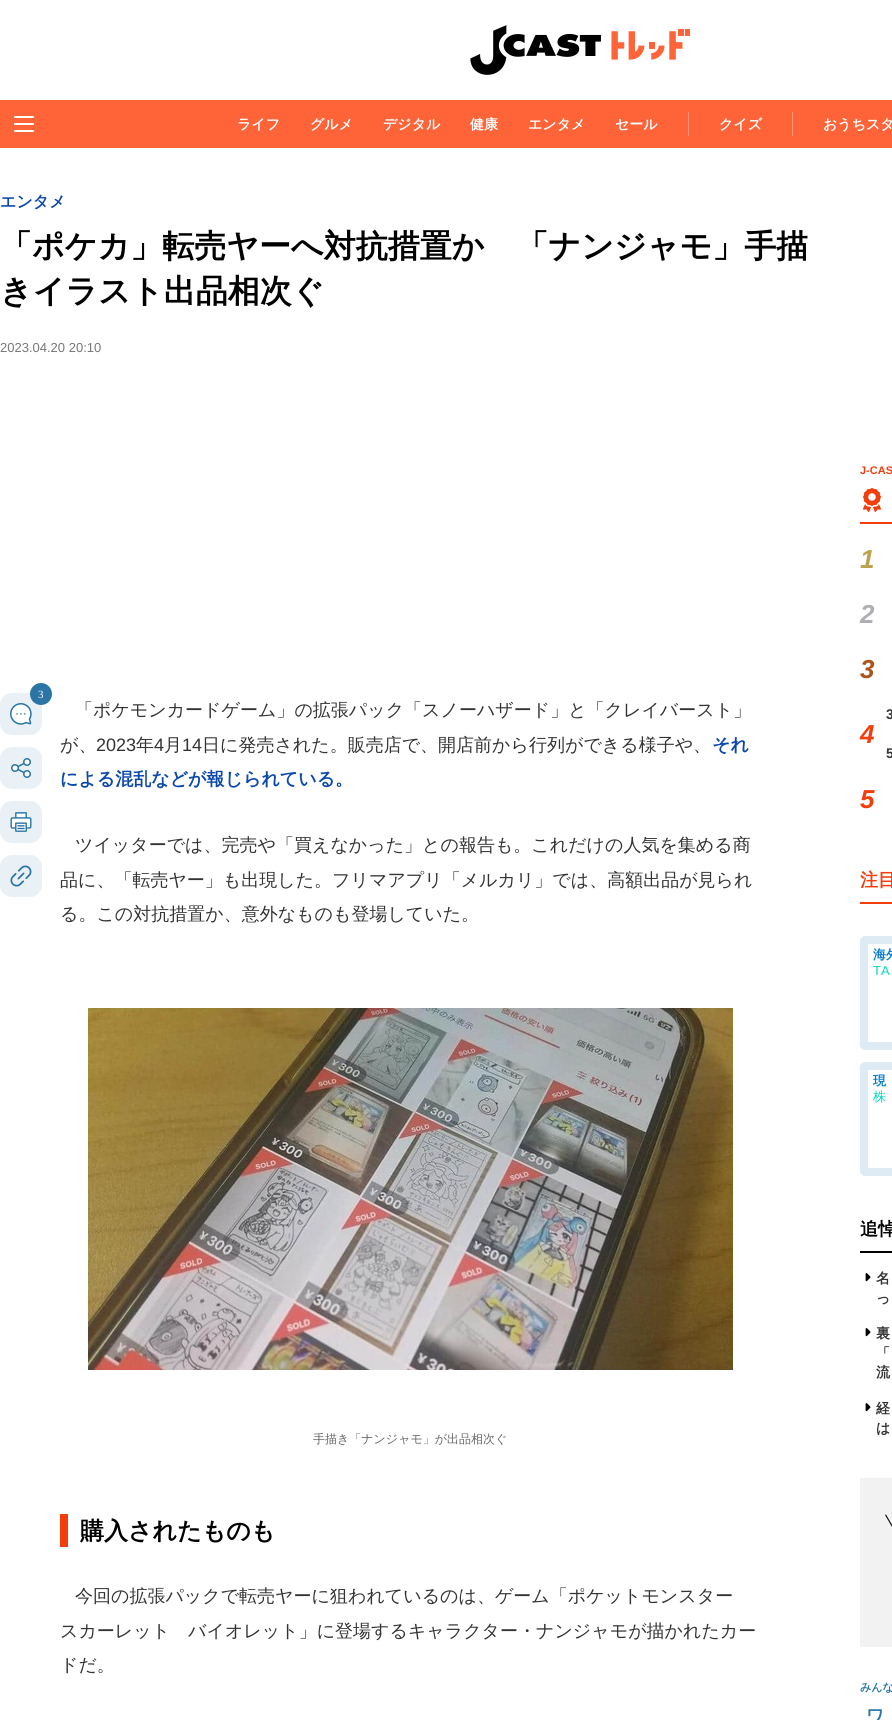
import math
import cairo

surface = cairo.ImageSurface(cairo.FORMAT_RGB24, 892, 1720)
c = cairo.Context(surface)
options = cairo.FontOptions()
options.set_hint_metrics(cairo.HINT_METRICS_OFF)
options.set_hint_style(cairo.HINT_STYLE_NONE)
c.set_font_options(options)
c.set_miter_limit(4)
def C(code):
 c.set_source_rgb(*(v / 255 for v in bytes.fromhex(code[-6:])))
def F(family, size, italic, bold):
 c.select_font_face(family, cairo.FONT_SLANT_ITALIC if italic else cairo.FONT_SLANT_NORMAL, cairo.FONT_WEIGHT_BOLD if bold else cairo.FONT_WEIGHT_NORMAL)
 c.set_font_size(size)
def T(x, y, s):
 c.move_to(x, y)
 c.show_text(s)
def R(x, y, w, h):
 c.rectangle(x, y, w, h)
 c.fill()
def Q(x, y, w, h, r):
 c.new_sub_path()
 for i, (u, v) in enumerate([(x + w - r, y + h - r), (x + r, y + h - r), (x + r, y + r), (x + w - r, y + r)]):
  c.arc(u, v, r, i * math.pi / 2, (i + 1) * math.pi / 2)
 c.close_path()
def I(path, x, y, w, h):
 c.save()
 c.set_source_surface(cairo.ImageSurface.create_from_png(path), x, y)
 c.rectangle(x, y, w, h)
 c.fill()
 c.restore()
C('ffffff')
c.paint()
I('1.png',470,25,220,50)
C('ff6338')
R(0,100,892,48)
I('2.png',14,116,20,16)
F('WenQuanYi Zen Hei',14,0,1)
C('ffffff')
T(237,129,'ライフ')
T(310,129,'グルメ')
T(383,129,'デジタル')
T(470,129,'健康')
T(528,129,'エンタメ')
T(615,129,'セール')
C('ff9274')
R(688,112,1,24)
C('ffffff')
T(719,129,'クイズ')
C('ff9274')
R(792,112,1,24)
C('ffffff')
T(823,129,'おうちスタ')
F('WenQuanYi Zen Hei',16,0,1)
C('0b48ad')
T(0,207,'エンタメ')
F('WenQuanYi Zen Hei',32,0,1)
C('000000')
T(0,257,'「ポケカ」転売ヤーへ対抗措置か　「ナンジャモ」手描')
T(0,302,'きイラスト出品相次ぐ')
F('Liberation Sans',13,0,0)
C('777777')
T(0,352,'2023.04.20 20:10')
C('e9f1f6')
Q(0,693,42,42,12)
c.fill()
I('3.png',10,703,22,22)
C('2a75a6')
c.arc(41,694,11,0,2 * math.pi)
c.fill()
F('Liberation Serif',11,0,0)
C('ffffff')
T(38,698,'3')
C('e9f1f6')
Q(0,747,42,42,12)
c.fill()
I('4.png',11,758,20,20)
Q(0,801,42,42,12)
c.fill()
I('5.png',10,812,22,20)
Q(0,855,42,42,12)
c.fill()
I('6.png',10,865,22,22)
F('WenQuanYi Zen Hei Medium',18,0,0)
C('333333')
T(75,716,'「ポケモンカードゲーム」の拡張パック「スノーハザード」と「クレイバースト」')
T(60,751,'が、')
F('Liberation Sans',18,0,0)
T(96,751,'2023')
F('WenQuanYi Zen Hei Medium',18,0,0)
T(136,751,'年')
F('Liberation Sans',18,0,0)
T(154,751,'4')
F('WenQuanYi Zen Hei Medium',18,0,0)
T(164,751,'月')
F('Liberation Sans',18,0,0)
T(182,751,'14')
F('WenQuanYi Zen Hei Medium',18,0,0)
T(202,751,'日に発売された。販売店で、開店前から行列ができる様子や、')
F('WenQuanYi Zen Hei',18,0,1)
C('0b48ad')
T(712,751,'それ')
T(60,785,'による混乱などが報じられている。')
F('WenQuanYi Zen Hei Medium',18,0,0)
C('333333')
T(75,851,'ツイッターでは、完売や「買えなかった」との報告も。これだけの人気を集める商')
T(60,886,'品に、「転売ヤー」も出現した。フリマアプリ「メルカリ」では、高額出品が見られ')
T(60,920,'る。この対抗措置か、意外なものも登場していた。')
I('7.png',88,1008,645,362)
F('WenQuanYi Zen Hei Medium',12,0,0)
C('666666')
T(313,1443,'手描き「ナンジャモ」が出品相次ぐ')
C('f23e0d')
R(60,1514,8,33)
F('WenQuanYi Zen Hei',24,0,1)
C('000000')
T(80,1539,'購入されたものも')
F('WenQuanYi Zen Hei Medium',18,0,0)
C('333333')
T(75,1602,'今回の拡張パックで転売ヤーに狙われているのは、ゲーム「ポケットモンスター')
T(60,1637,'スカーレット　バイオレット」に登場するキャラクター・ナンジャモが描かれたカー')
T(60,1671,'ドだ。')
F('Liberation Sans',11,0,1)
C('f23e0d')
T(860,474,'J-CAS')
R(860,522,32,2)
I('8.png',863,488,18,24)
F('Liberation Sans',26,1,1)
C('bca250')
T(860,568,'1')
C('adafb2')
T(860,623,'2')
C('aa5520')
T(860,678,'3')
C('f23e0d')
T(860,743,'4')
F('Liberation Sans',14,0,1)
C('333333')
T(886,719,'3')
T(886,758,'5')
F('Liberation Sans',26,1,1)
C('f23e0d')
T(860,808,'5')
R(860,902,32,2)
F('WenQuanYi Zen Hei',18,0,1)
T(860,886,'注目')
Q(864,940,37,106,1)
C('deebf4')
c.set_line_width(8)
c.stroke()
F('WenQuanYi Zen Hei',13,0,1)
C('037acc')
T(873,959,'海外')
F('Liberation Sans',13,0,0)
C('08d9be')
T(873,975,'TA')
Q(864,1066,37,106,1)
C('deebf4')
c.stroke()
F('WenQuanYi Zen Hei',13,0,1)
C('037acc')
T(873,1085,'現')
F('WenQuanYi Zen Hei Medium',13,0,0)
C('08d9be')
T(873,1101,'株')
C('000000')
R(860,1251,32,2)
F('WenQuanYi Zen Hei',18,0,1)
T(860,1235,'追悼')
I('9.png',865,1273,6,9)
F('WenQuanYi Zen Hei',14,0,1)
C('333333')
T(876,1283,'名')
T(876,1303,'っ')
I('9.png',865,1328,6,9)
T(876,1338,'裏')
T(876,1358,'「')
T(876,1377,'流')
I('9.png',865,1403,6,9)
T(876,1413,'経')
T(876,1433,'は')
C('f2f2f2')
R(860,1478,32,169)
C('000000')
c.new_path()
c.move_to(886,1514.5)
c.line_to(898,1535)
c.line_to(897,1535.5)
c.line_to(885,1515)
c.close_path()
c.fill()
F('WenQuanYi Zen Hei',11,0,1)
C('2975a6')
T(860,1691,'みんな')
F('WenQuanYi Zen Hei',18,0,1)
T(866,1722,'ワ')
surface.write_to_png('o.png')
